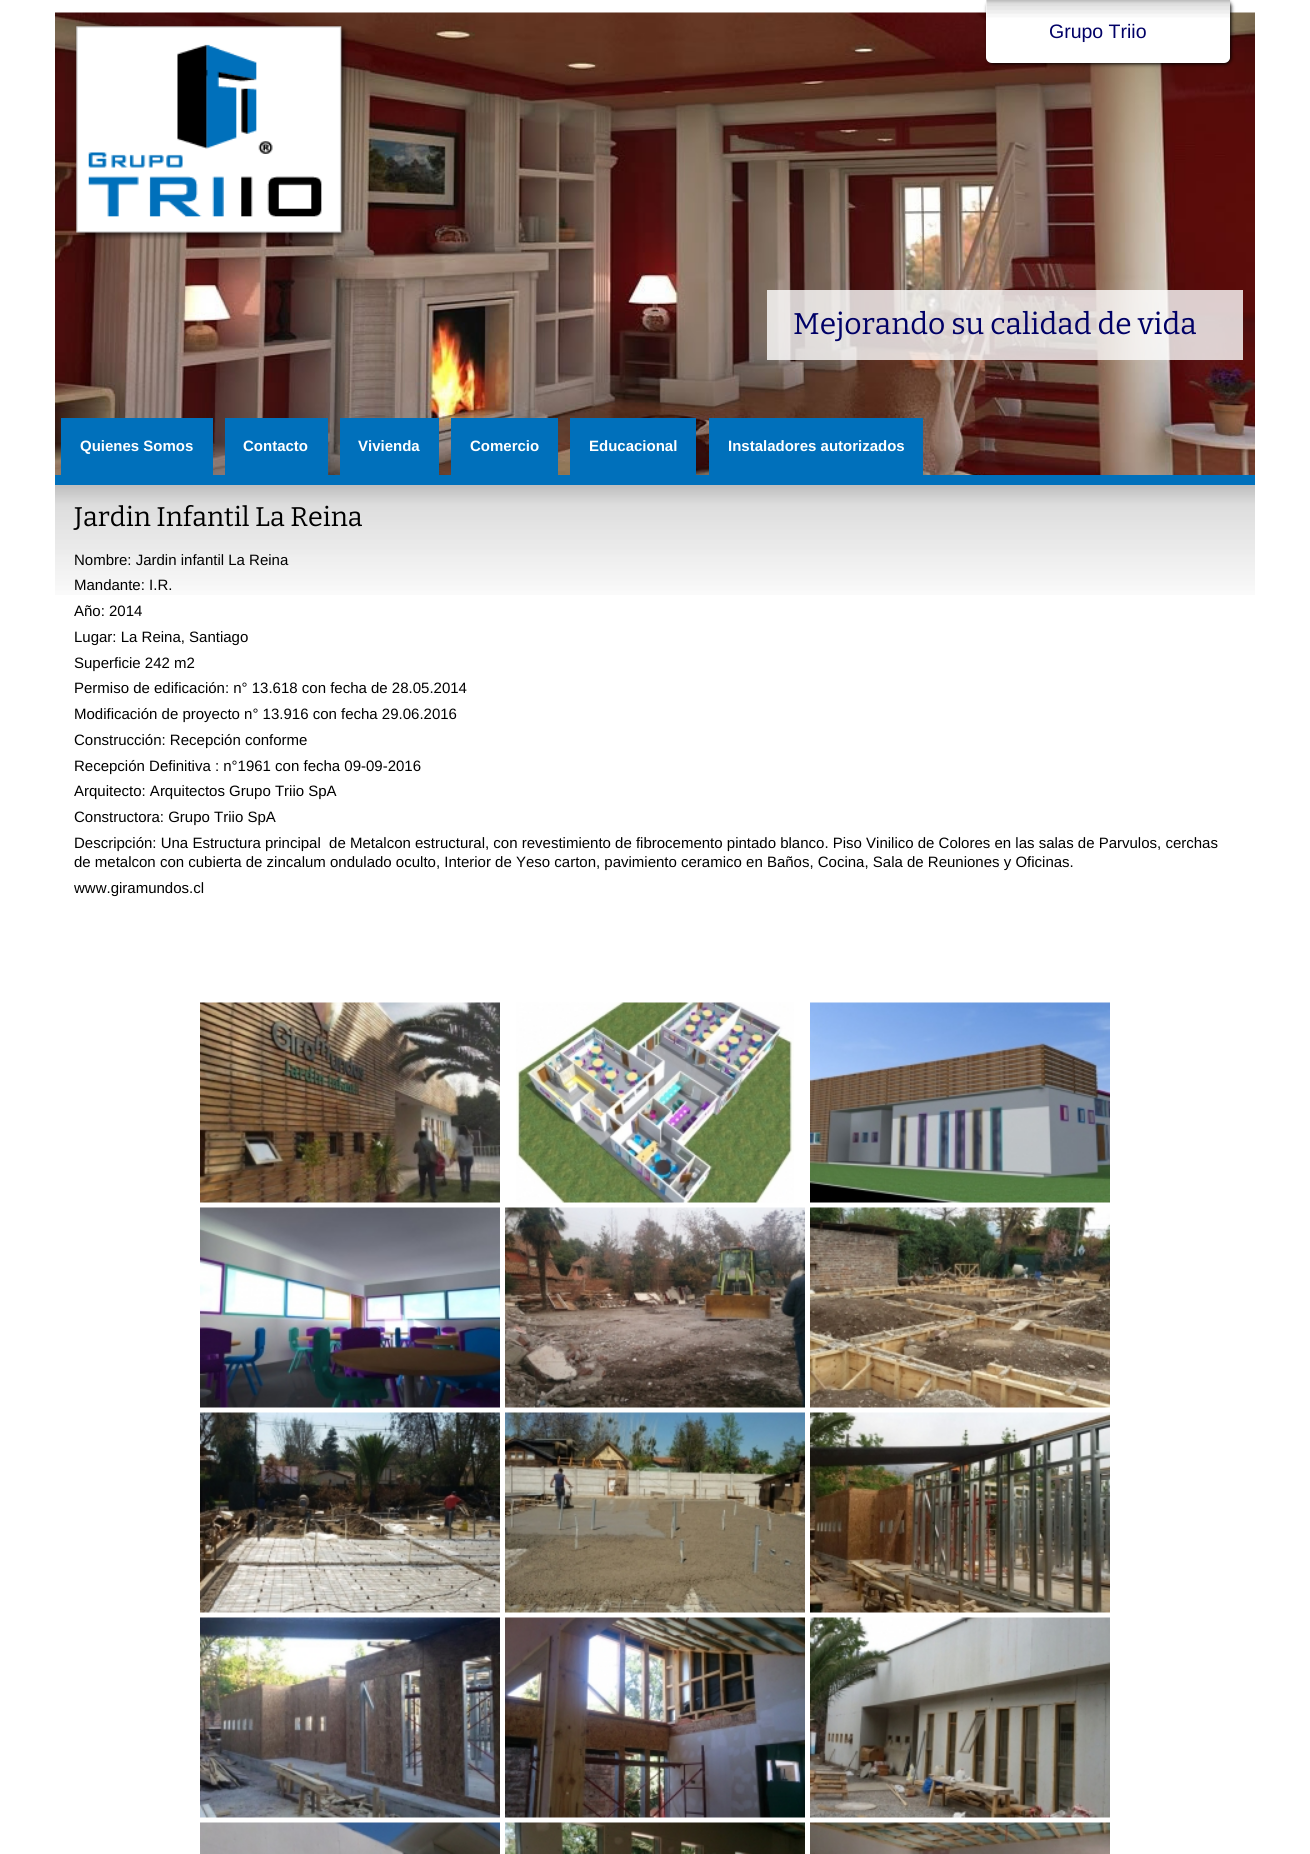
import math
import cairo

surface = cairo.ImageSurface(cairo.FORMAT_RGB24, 1310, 1854)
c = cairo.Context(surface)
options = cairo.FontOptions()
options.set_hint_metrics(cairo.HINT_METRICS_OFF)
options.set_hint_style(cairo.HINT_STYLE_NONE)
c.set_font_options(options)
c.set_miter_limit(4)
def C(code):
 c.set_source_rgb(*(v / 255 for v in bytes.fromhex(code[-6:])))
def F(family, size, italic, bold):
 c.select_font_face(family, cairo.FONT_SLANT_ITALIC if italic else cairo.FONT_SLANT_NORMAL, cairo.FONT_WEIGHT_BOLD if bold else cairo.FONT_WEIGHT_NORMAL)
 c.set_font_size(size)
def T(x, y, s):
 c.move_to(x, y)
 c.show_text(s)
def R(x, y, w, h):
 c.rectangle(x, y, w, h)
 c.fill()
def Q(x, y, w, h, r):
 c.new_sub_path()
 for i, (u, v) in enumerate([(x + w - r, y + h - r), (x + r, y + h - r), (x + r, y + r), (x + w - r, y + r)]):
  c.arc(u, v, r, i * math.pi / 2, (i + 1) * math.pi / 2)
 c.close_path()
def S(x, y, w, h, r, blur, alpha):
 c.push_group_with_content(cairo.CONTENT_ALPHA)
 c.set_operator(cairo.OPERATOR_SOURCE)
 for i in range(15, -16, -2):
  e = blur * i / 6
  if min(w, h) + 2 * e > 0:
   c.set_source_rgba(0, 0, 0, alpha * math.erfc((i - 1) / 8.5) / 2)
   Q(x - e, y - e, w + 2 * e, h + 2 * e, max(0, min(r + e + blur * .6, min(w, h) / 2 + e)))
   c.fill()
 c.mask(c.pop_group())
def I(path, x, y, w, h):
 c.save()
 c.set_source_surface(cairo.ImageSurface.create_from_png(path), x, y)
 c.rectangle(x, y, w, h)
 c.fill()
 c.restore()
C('ffffff')
c.paint()
I('2.png',55,12,1200,463)
C('000000')
S(988,1,243,63,6,2,1)
C('ffffff')
c.new_path()
c.move_to(986,0)
c.line_to(1230,0)
c.line_to(1230,57)
c.curve_to(1230,60.5,1227.5,63,1224,63)
c.line_to(992,63)
c.curve_to(988.5,63,986,60.5,986,57)
c.close_path()
c.fill()
I('1.png',986,0,244,60)
F('Liberation Sans',19.5,0,0)
C('000066')
T(1049,38,'Grupo Triio')
I('3.png',75,25,273,214)
c.set_source_rgba(1,1,1,0.8)
R(767,290,476,70)
F('Bitter',30,0,0)
C('000066')
T(793,334,'Mejorando su calidad de vida')
C('0070bb')
R(61,418,152,57)
F('Liberation Sans',15,0,1)
C('ffffff')
T(80,451,'Quienes Somos')
C('0070bb')
R(225,418,103,57)
C('ffffff')
T(243,451,'Contacto')
C('0070bb')
R(340,418,99,57)
C('ffffff')
T(358,451,'Vivienda')
C('0070bb')
R(451,418,107,57)
C('ffffff')
T(470,451,'Comercio')
C('0070bb')
R(570,418,126,57)
C('ffffff')
T(589,451,'Educacional')
C('0070bb')
R(709,418,214,57)
C('ffffff')
T(728,451,'Instaladores autorizados')
C('0070bb')
R(55,475,1200,10)
I('4.png',55,485,1200,110)
F('Bitter',27,0,0)
C('000000')
T(74,526,'Jardin Infantil La Reina')
F('Liberation Sans',15,0,0)
T(74,565,'Nombre: Jardin infantil La Reina')
T(74,590,'Mandante: I.R.')
T(74,616,'Año: 2014')
T(74,642,'Lugar: La Reina, Santiago')
T(74,668,'Superficie 242 m2')
T(74,693,'Permiso de edificación: n° 13.618 con fecha de 28.05.2014')
T(74,719,'Modificación de proyecto n° 13.916 con fecha 29.06.2016')
T(74,745,'Construcción: Recepción conforme')
T(74,771,'Recepción Definitiva : n°1961 con fecha 09-09-2016')
T(74,796,'Arquitecto: Arquitectos Grupo Triio SpA')
T(74,822,'Constructora: Grupo Triio SpA')
T(74,848,'Descripción: Una Estructura principal  de Metalcon estructural, con revestimiento de fibrocemento pintado blanco. Piso Vinilico de Colores en las salas de Parvulos, cerchas')
T(74,867,'de metalcon con cubierta de zincalum ondulado oculto, Interior de Yeso carton, pavimiento ceramico en Baños, Cocina, Sala de Reuniones y Oficinas.')
T(74,893,'www.giramundos.cl')
I('5.png',200,1002,300,201)
I('6.png',516,1002,278,201)
I('7.png',810,1002,300,201)
I('8.png',200,1207,300,201)
I('9.png',505,1207,300,201)
I('10.png',810,1207,300,201)
I('11.png',200,1412,300,201)
I('12.png',505,1412,300,201)
I('13.png',810,1412,300,201)
I('14.png',200,1617,300,201)
I('15.png',505,1617,300,201)
I('16.png',810,1617,300,201)
I('17.png',200,1822,300,32)
I('18.png',505,1822,300,32)
I('19.png',810,1822,300,32)
surface.write_to_png('o.png')
